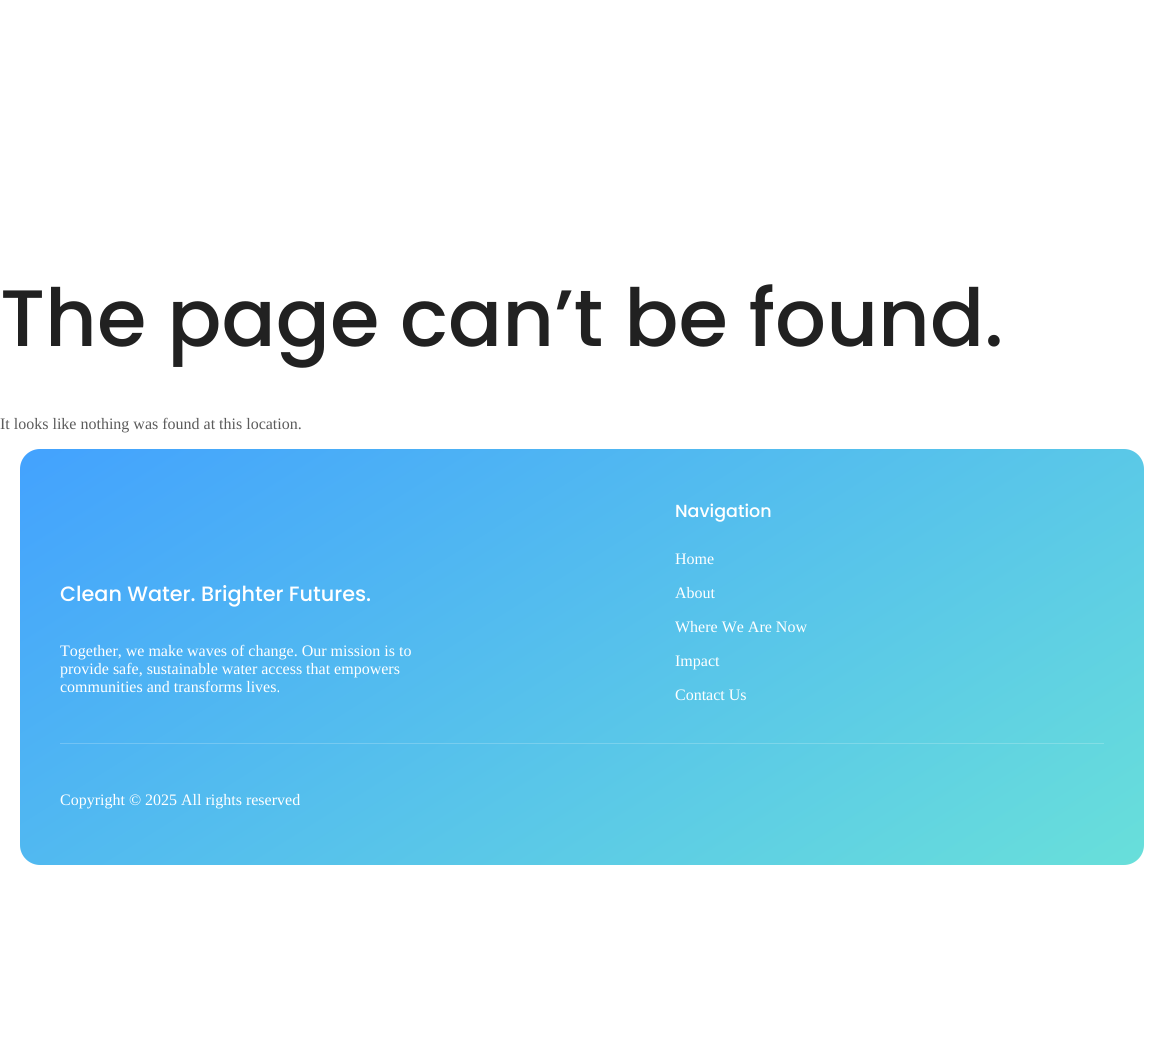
import math
import cairo

surface = cairo.ImageSurface(cairo.FORMAT_RGB24, 1164, 1055)
c = cairo.Context(surface)
options = cairo.FontOptions()
options.set_hint_metrics(cairo.HINT_METRICS_OFF)
options.set_hint_style(cairo.HINT_STYLE_NONE)
c.set_font_options(options)
c.set_miter_limit(4)
def C(code):
 c.set_source_rgb(*(v / 255 for v in bytes.fromhex(code[-6:])))
def F(family, size, italic, bold):
 c.select_font_face(family, cairo.FONT_SLANT_ITALIC if italic else cairo.FONT_SLANT_NORMAL, cairo.FONT_WEIGHT_BOLD if bold else cairo.FONT_WEIGHT_NORMAL)
 c.set_font_size(size)
def T(x, y, s):
 c.move_to(x, y)
 c.show_text(s)
def R(x, y, w, h):
 c.rectangle(x, y, w, h)
 c.fill()
def Q(x, y, w, h, r):
 c.new_sub_path()
 for i, (u, v) in enumerate([(x + w - r, y + h - r), (x + r, y + h - r), (x + r, y + r), (x + w - r, y + r)]):
  c.arc(u, v, r, i * math.pi / 2, (i + 1) * math.pi / 2)
 c.close_path()
C('ffffff')
c.paint()
F('Poppins Medium',80,0,0)
C('212121')
T(0,346,'The page can’t be found.')
F('Liberation Serif',16,0,0)
C('5b5b5b')
T(0,429,'It looks like nothing was found at this location.')
gradient = cairo.LinearGradient(331,255,833,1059)
gradient.add_color_stop_rgba(0,0.263,0.635,0.996,1)
gradient.add_color_stop_rgba(1,0.408,0.875,0.855,1)
c.set_source(gradient)
Q(20,449,1124,416,20)
c.fill()
gradient = cairo.LinearGradient(331,255,833,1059)
gradient.add_color_stop_rgba(0,0.412,0.71,0.996,1)
gradient.add_color_stop_rgba(1,0.525,0.898,0.882,1)
c.set_source(gradient)
R(60,743,1044,1)
F('Poppins Medium',20.75,0,0)
C('ffffff')
T(60,601,'Clean Water. Brighter Futures.')
F('Liberation Serif',16,0,0)
T(60,656,'Together, we make waves of change. Our mission is to')
T(60,674,'provide safe, sustainable water access that empowers')
T(60,692,'communities and transforms lives.')
F('Poppins Medium',17.5,0,0)
T(675,517,'Navigation')
F('Liberation Serif',16,0,0)
T(675,564,'Home')
T(675,598,'About')
T(675,632,'Where We Are Now')
T(675,666,'Impact')
T(675,700,'Contact Us')
T(60,805,'Copyright © 2025 All rights reserved')
surface.write_to_png('o.png')
